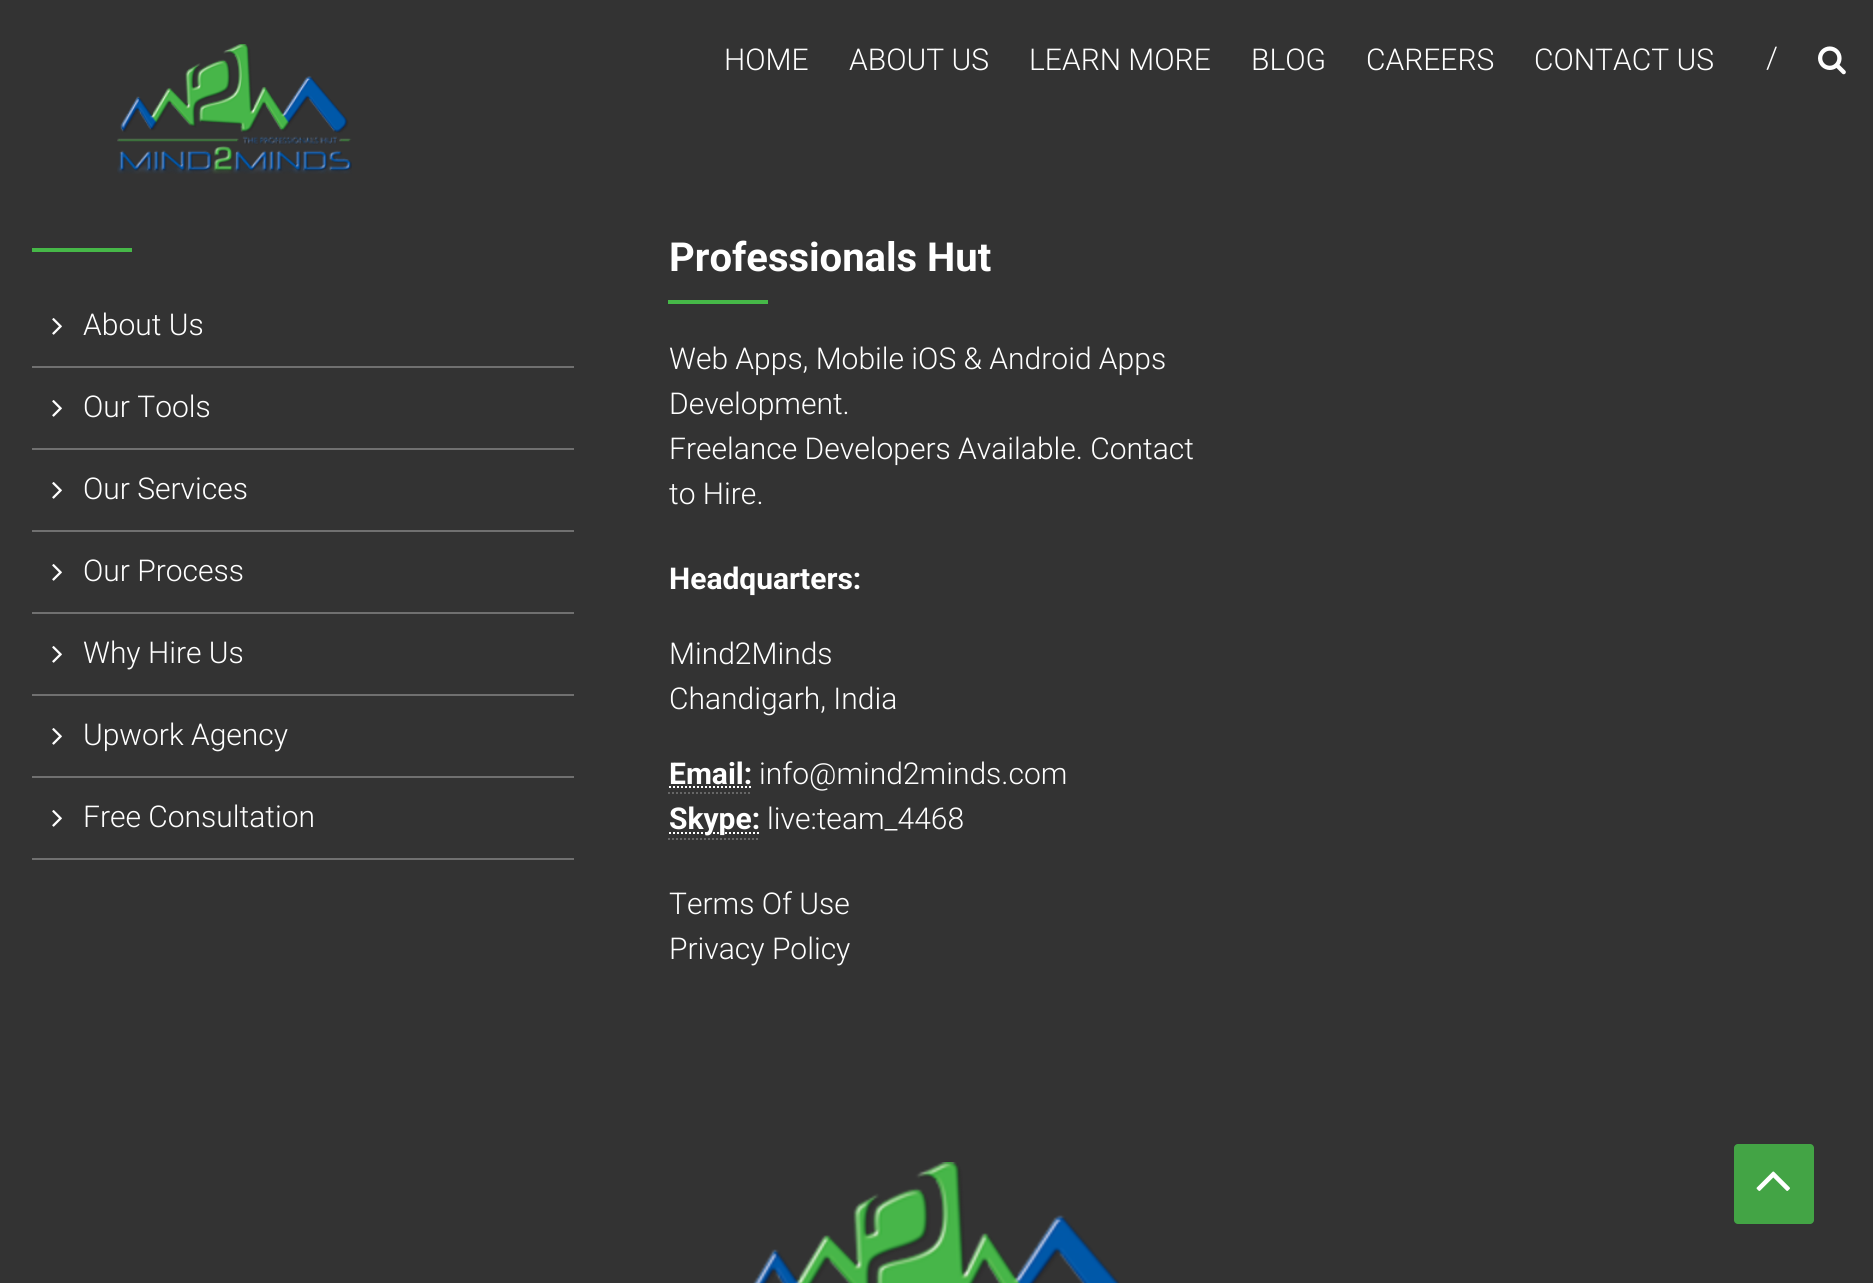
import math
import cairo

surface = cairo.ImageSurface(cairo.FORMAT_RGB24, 1873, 1283)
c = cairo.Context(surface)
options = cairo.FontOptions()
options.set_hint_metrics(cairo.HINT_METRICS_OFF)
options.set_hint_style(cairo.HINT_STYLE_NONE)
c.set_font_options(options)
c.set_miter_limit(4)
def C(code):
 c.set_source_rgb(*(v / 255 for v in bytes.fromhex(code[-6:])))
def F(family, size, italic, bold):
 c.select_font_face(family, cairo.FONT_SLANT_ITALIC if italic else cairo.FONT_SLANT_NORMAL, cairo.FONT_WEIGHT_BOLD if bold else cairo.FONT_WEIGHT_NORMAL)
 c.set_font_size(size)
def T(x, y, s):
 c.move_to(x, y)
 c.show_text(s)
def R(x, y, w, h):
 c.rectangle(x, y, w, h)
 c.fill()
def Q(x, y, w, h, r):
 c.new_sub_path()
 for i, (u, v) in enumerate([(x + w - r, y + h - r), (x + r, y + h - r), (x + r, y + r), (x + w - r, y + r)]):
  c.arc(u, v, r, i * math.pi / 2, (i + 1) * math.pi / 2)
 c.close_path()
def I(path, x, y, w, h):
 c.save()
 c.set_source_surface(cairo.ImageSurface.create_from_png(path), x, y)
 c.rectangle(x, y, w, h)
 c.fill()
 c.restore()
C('333333')
c.paint()
I('1.png',117,44,235,130)
F('Roboto Light',30,0,0)
C('ffffff')
T(724,70,'HOME')
T(849,70,'ABOUT US')
T(1029,70,'LEARN MORE')
T(1251,70,'BLOG')
T(1366,70,'CAREERS')
T(1534,70,'CONTACT US')
T(1766,68,'/')
I('2.png',1818,46,28,29)
C('46b848')
R(32,248,100,4)
C('707070')
R(32,366,542,2)
I('3.png',52,318,10,17)
C('ffffff')
T(83,335,'About Us')
C('707070')
R(32,448,542,2)
I('3.png',52,400,10,17)
C('ffffff')
T(83,417,'Our Tools')
C('707070')
R(32,530,542,2)
I('3.png',52,482,10,17)
C('ffffff')
T(83,499,'Our Services')
C('707070')
R(32,612,542,2)
I('3.png',52,564,10,17)
C('ffffff')
T(83,581,'Our Process')
C('707070')
R(32,694,542,2)
I('3.png',52,646,10,17)
C('ffffff')
T(83,663,'Why Hire Us')
C('707070')
R(32,776,542,2)
I('3.png',52,728,10,17)
C('ffffff')
T(83,745,'Upwork Agency')
C('707070')
R(32,858,542,2)
I('3.png',52,810,10,17)
C('ffffff')
T(83,827,'Free Consultation')
F('Roboto',40,0,1)
T(669,271,'Professionals Hut')
C('46b848')
R(668,300,100,4)
F('Roboto Light',30,0,0)
C('ffffff')
T(669,369,'Web Apps, Mobile iOS & Android Apps')
T(669,414,'Development.')
T(669,459,'Freelance Developers Available. Contact')
T(669,504,'to Hire.')
F('Roboto',30,0,1)
T(669,589,'Headquarters:')
F('Roboto Light',30,0,0)
T(669,664,'Mind2Minds')
T(669,709,'Chandigarh, India')
F('Roboto',30,0,1)
T(669,784,'Email:')
c.new_path()
c.move_to(668,793)
c.line_to(752,793)
C('666666')
c.set_dash([2,2])
c.stroke()
c.new_path()
c.move_to(669,787)
c.line_to(752,787)
C('ffffff')
c.stroke()
F('Roboto Light',30,0,0)
T(759,784,'info@mind2minds.com')
c.new_path()
c.move_to(669,833)
c.line_to(760,833)
c.stroke()
F('Roboto',30,0,1)
T(669,829,'Skype:')
c.new_path()
c.move_to(668,839)
c.line_to(760,839)
C('666666')
c.stroke()
F('Roboto Light',30,0,0)
C('ffffff')
T(767,829,'live:team_4468')
T(669,914,'Terms Of Use')
T(669,959,'Privacy Policy')
I('4.png',753,1162,366,121)
C('43a445')
Q(1734,1144,80,80,4)
c.fill()
I('5.png',1756,1171,34,20)
surface.write_to_png('o.png')
